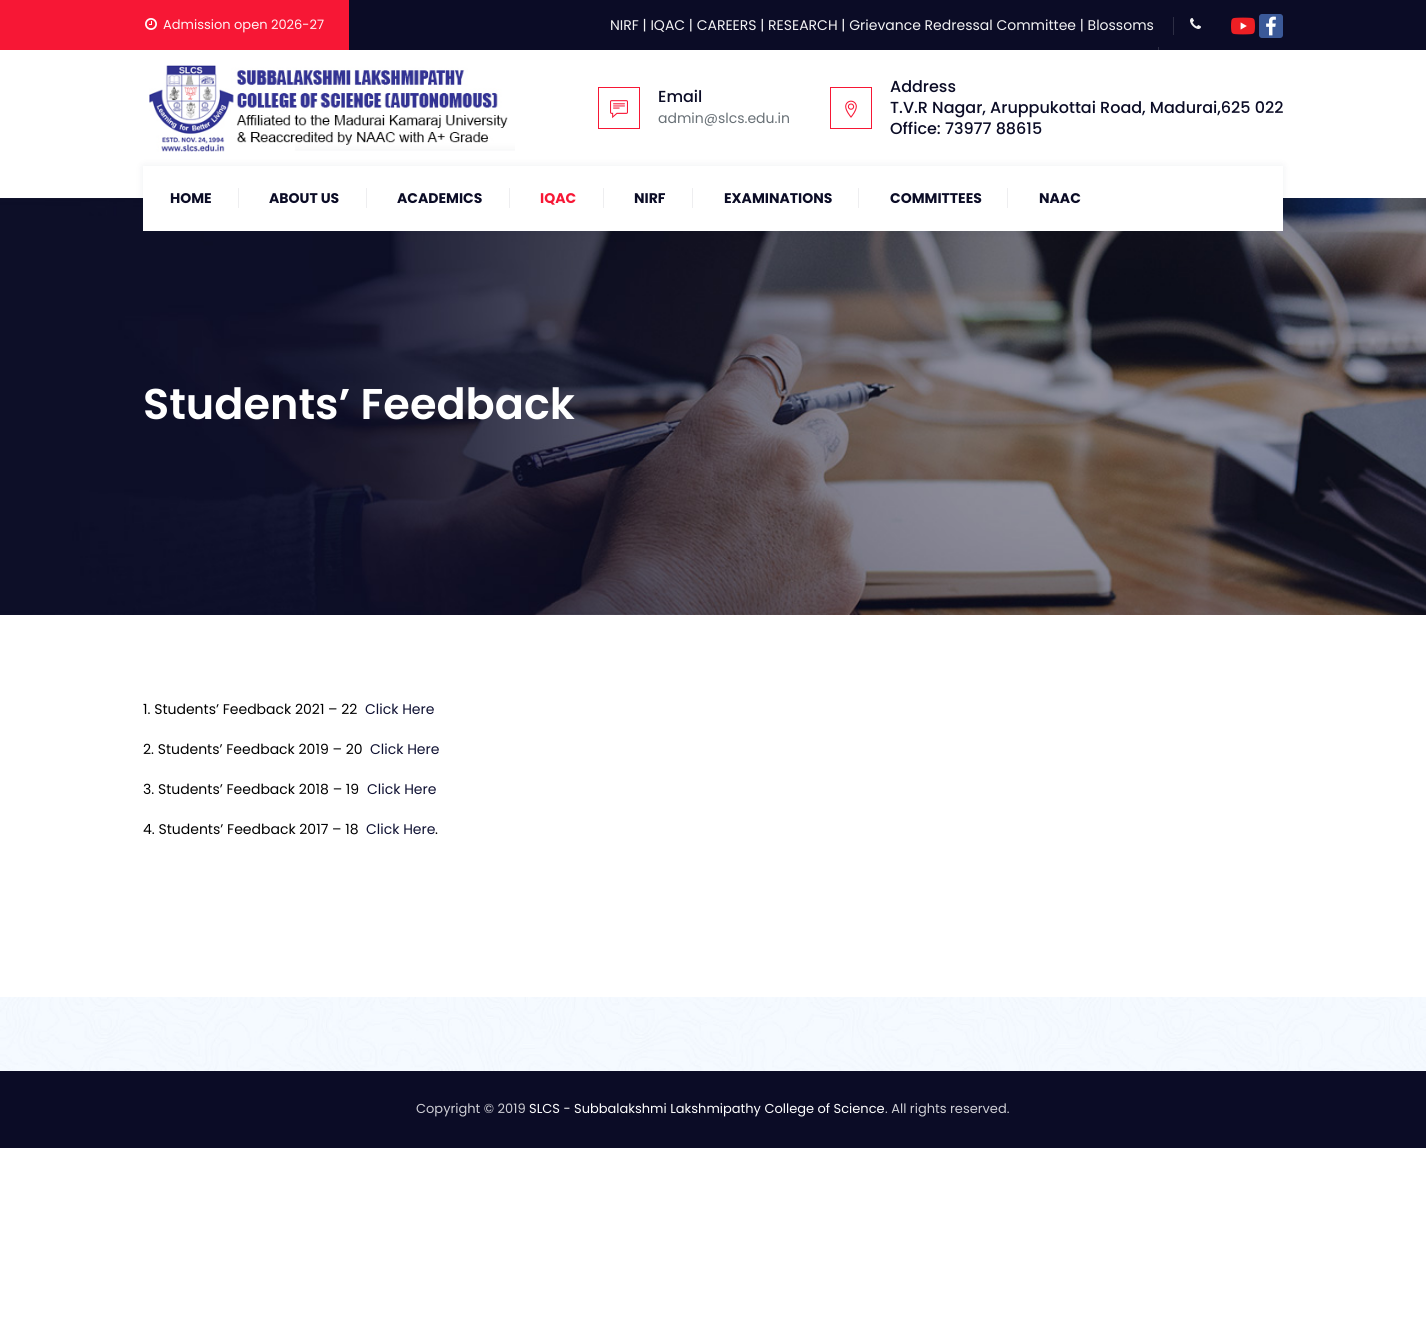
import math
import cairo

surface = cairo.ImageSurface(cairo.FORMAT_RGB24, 1426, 1339)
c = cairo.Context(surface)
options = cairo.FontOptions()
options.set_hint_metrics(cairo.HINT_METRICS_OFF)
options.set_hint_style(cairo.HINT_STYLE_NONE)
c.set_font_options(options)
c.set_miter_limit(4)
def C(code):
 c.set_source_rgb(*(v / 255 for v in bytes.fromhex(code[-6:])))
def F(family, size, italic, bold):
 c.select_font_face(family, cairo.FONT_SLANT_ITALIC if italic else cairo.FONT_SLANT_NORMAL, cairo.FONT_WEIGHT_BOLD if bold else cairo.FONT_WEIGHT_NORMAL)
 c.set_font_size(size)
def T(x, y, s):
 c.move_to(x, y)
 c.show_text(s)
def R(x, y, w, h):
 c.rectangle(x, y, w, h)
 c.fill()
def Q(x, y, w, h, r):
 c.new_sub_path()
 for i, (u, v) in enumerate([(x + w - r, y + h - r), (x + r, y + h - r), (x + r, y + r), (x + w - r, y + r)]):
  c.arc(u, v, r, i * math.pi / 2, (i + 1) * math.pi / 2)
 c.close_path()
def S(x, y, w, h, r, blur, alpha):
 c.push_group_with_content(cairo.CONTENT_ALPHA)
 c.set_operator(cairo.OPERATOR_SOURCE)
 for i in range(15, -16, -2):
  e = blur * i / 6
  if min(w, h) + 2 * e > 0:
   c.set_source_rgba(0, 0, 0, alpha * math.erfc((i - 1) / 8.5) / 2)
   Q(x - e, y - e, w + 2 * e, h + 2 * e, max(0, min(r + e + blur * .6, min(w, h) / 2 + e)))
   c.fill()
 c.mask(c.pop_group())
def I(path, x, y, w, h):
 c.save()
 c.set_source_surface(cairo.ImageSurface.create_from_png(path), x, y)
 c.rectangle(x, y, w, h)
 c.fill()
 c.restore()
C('ffffff')
c.paint()
C('0b0c26')
R(349,0,1077,50)
C('2d2e44')
R(1158,47,1,3)
C('f71735')
R(0,0,349,50)
I('1.png',145,18,12,12)
F('Poppins',13,0,0)
C('fff3f5')
T(163,29,'Admission open 2026-27')
F('Poppins',14,0,0)
C('f3f3f4')
T(610,30,'NIRF | IQAC | CAREERS | RESEARCH | Grievance Redressal Committee | Blossoms')
C('2d2e44')
R(1173,17,1,18)
I('2.png',1190,18,11,11)
I('3.png',1231,17,24,18)
I('4.png',1259,14,24,24)
I('5.png',149,65,366,87)
c.rectangle(598.5,87.5,41,41)
C('f71735')
c.set_line_width(1)
c.stroke()
I('6.png',610,100,18,19)
F('Poppins Medium',16,0,0)
C('0b0c26')
T(658,102,'Email')
F('Poppins',14,0,0)
C('687076')
T(658,123,'admin@slcs.edu.in')
c.rectangle(830.5,87.5,41,41)
C('f71735')
c.stroke()
I('7.png',845,100,12,18)
F('Poppins Medium',16,0,0)
C('0b0c26')
T(890,92,'Address')
T(890,113,'T.V.R Nagar, Aruppukottai Road, Madurai,625 022')
T(890,134,'Office: 73977 88615')
I('8.png',0,198,1426,417)
C('06163a')
S(143,166,1140,65,0,4.5,.07)
C('ffffff')
R(143,166,1140,65)
F('Poppins',14,0,1)
C('0b0c26')
T(170,203,'HOME')
C('eeeef0')
R(238,188,1,20)
C('0b0c26')
T(269,203,'ABOUT US')
C('eeeef0')
R(366,188,1,20)
C('0b0c26')
T(397,203,'ACADEMICS')
C('eeeef0')
R(509,188,1,20)
C('f71735')
T(540,203,'IQAC')
C('eeeef0')
R(603,188,1,20)
C('0b0c26')
T(634,203,'NIRF')
C('eeeef0')
R(692,188,1,20)
C('0b0c26')
T(724,203,'EXAMINATIONS')
C('eeeef0')
R(858,188,1,20)
C('0b0c26')
T(890,203,'COMMITTEES')
C('eeeef0')
R(1007,188,1,20)
C('0b0c26')
T(1039,203,'NAAC')
F('Poppins SemiBold',43,0,0)
C('ffffff')
T(143,419,'Students’ Feedback')
F('Poppins',14,0,0)
C('000000')
T(143,714,'1. Students’ Feedback 2021 – 22')
C('0e1032')
T(365,714,'Click Here')
C('000000')
T(143,754,'2. Students’ Feedback 2019 – 20')
C('0e1032')
T(370,754,'Click Here')
C('000000')
T(143,794,'3. Students’ Feedback 2018 – 19')
C('0e1032')
T(367,794,'Click Here')
C('000000')
T(143,834,'4. Students’ Feedback 2017 – 18')
C('0e1032')
T(366,834,'Click Here')
C('000000')
T(435,834,'.')
I('9.png',0,997,1426,74)
C('0b0c26')
R(0,1071,1426,77)
F('Poppins',13,0,0)
C('ceced4')
T(416,1113,'Copyright © 2019')
C('ffffff')
T(529,1113,'SLCS - Subbalakshmi Lakshmipathy College of Science')
C('ceced4')
T(885,1113,'. All rights reserved.')
surface.write_to_png('o.png')
